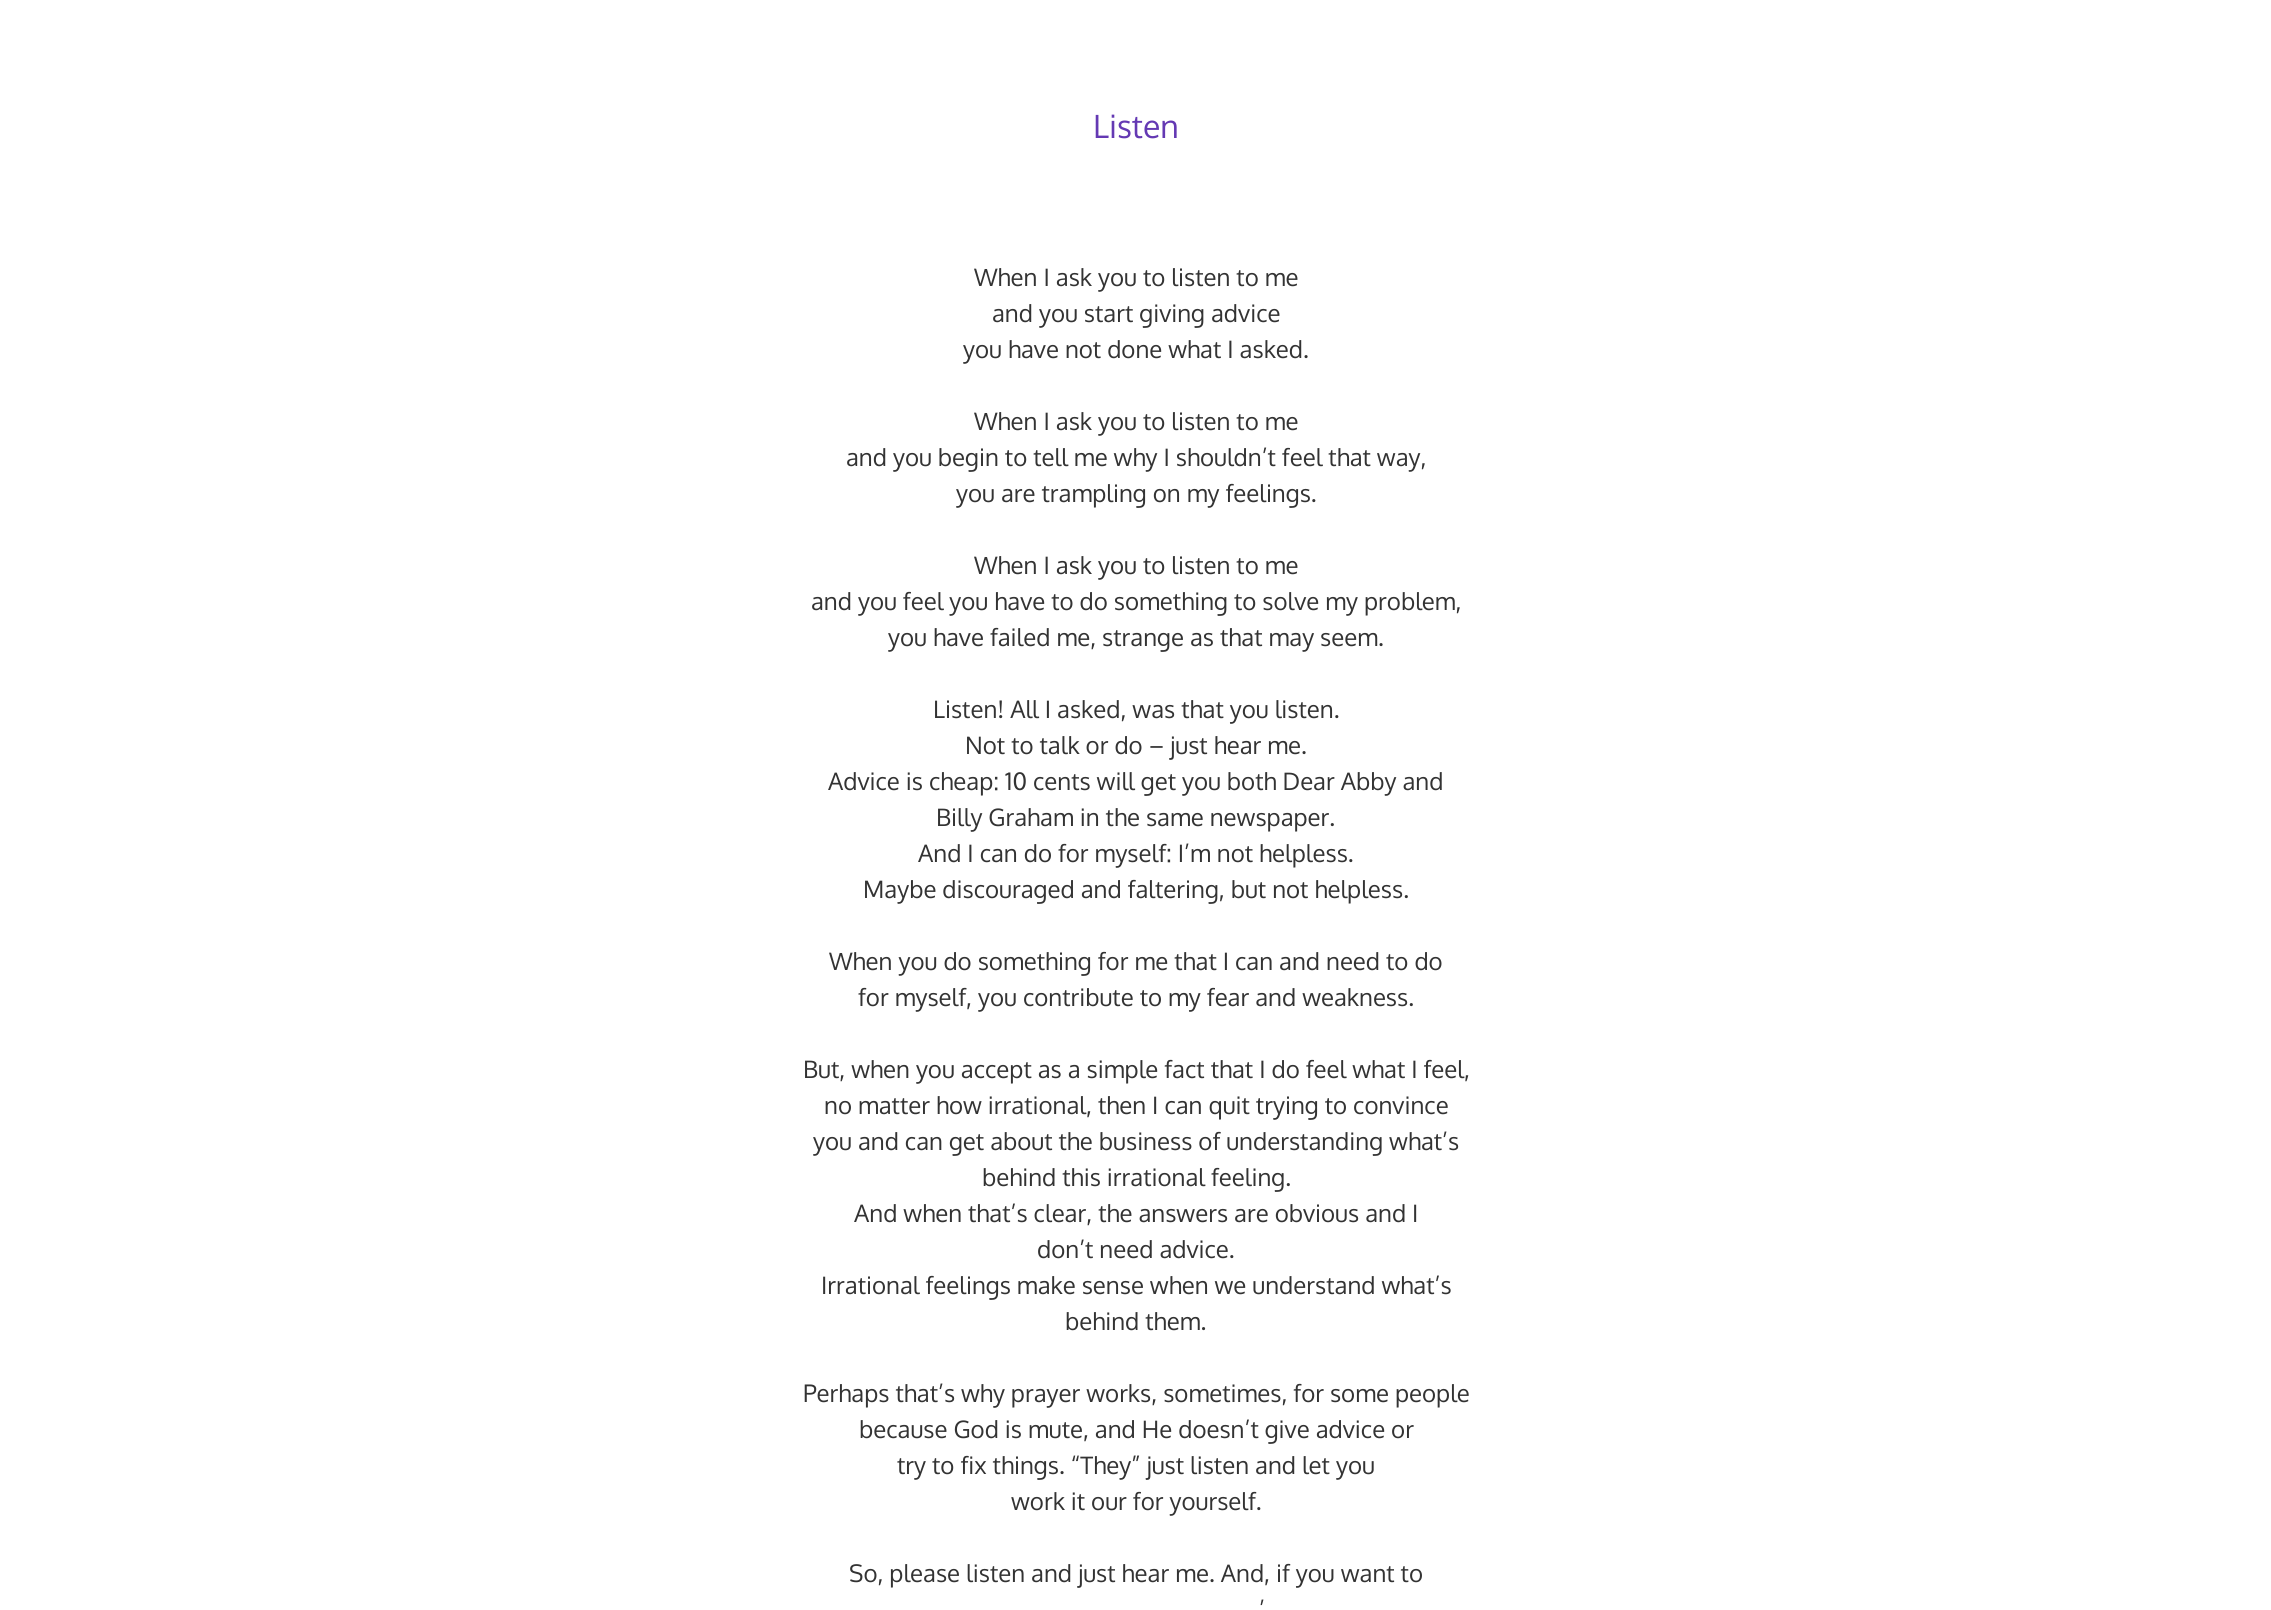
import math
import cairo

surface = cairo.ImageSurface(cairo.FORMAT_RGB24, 2271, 1610)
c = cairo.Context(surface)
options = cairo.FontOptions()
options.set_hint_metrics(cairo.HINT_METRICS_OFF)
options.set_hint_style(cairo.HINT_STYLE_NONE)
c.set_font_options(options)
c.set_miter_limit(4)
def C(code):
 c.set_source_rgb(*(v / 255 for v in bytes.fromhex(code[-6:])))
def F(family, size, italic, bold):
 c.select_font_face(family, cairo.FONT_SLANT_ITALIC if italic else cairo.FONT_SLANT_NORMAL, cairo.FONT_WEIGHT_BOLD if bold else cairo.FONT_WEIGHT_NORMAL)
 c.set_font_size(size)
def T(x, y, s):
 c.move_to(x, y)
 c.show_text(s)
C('ffffff')
c.paint()
F('Oxygen',32,0,0)
C('6439b3')
T(1093,138,'Listen')
F('Oxygen',24,0,0)
C('333333')
T(974,286,'When I ask you to listen to me')
T(992,322,'and you start giving advice')
T(963,358,'you have not done what I asked.')
T(974,430,'When I ask you to listen to me')
T(846,466,'and you begin to tell me why I shouldn’t feel that way,')
T(956,502,'you are trampling on my feelings.')
T(974,574,'When I ask you to listen to me')
T(811,610,'and you feel you have to do something to solve my problem,')
T(888,646,'you have failed me, strange as that may seem.')
T(933,718,'Listen! All I asked, was that you listen.')
T(965,754,'Not to talk or do – just hear me.')
T(828,790,'Advice is cheap: 10 cents will get you both Dear Abby and')
T(936,826,'Billy Graham in the same newspaper.')
T(918,862,'And I can do for myself: I’m not helpless.')
T(863,898,'Maybe discouraged and faltering, but not helpless.')
T(829,970,'When you do something for me that I can and need to do')
T(858,1006,'for myself, you contribute to my fear and weakness.')
T(803,1078,'But, when you accept as a simple fact that I do feel what I feel,')
T(824,1114,'no matter how irrational, then I can quit trying to convince')
T(813,1150,'you and can get about the business of understanding what’s')
T(982,1186,'behind this irrational feeling.')
T(854,1222,'And when that’s clear, the answers are obvious and I')
T(1037,1258,'don’t need advice.')
T(821,1294,'Irrational feelings make sense when we understand what’s')
T(1065,1330,'behind them.')
T(803,1402,'Perhaps that’s why prayer works, sometimes, for some people')
T(859,1438,'because God is mute, and He doesn’t give advice or')
T(897,1474,'try to fix things. “They” just listen and let you')
T(1011,1510,'work it our for yourself.')
T(849,1582,'So, please listen and just hear me. And, if you want to')
T(1259,1618,'’')
surface.write_to_png('o.png')
